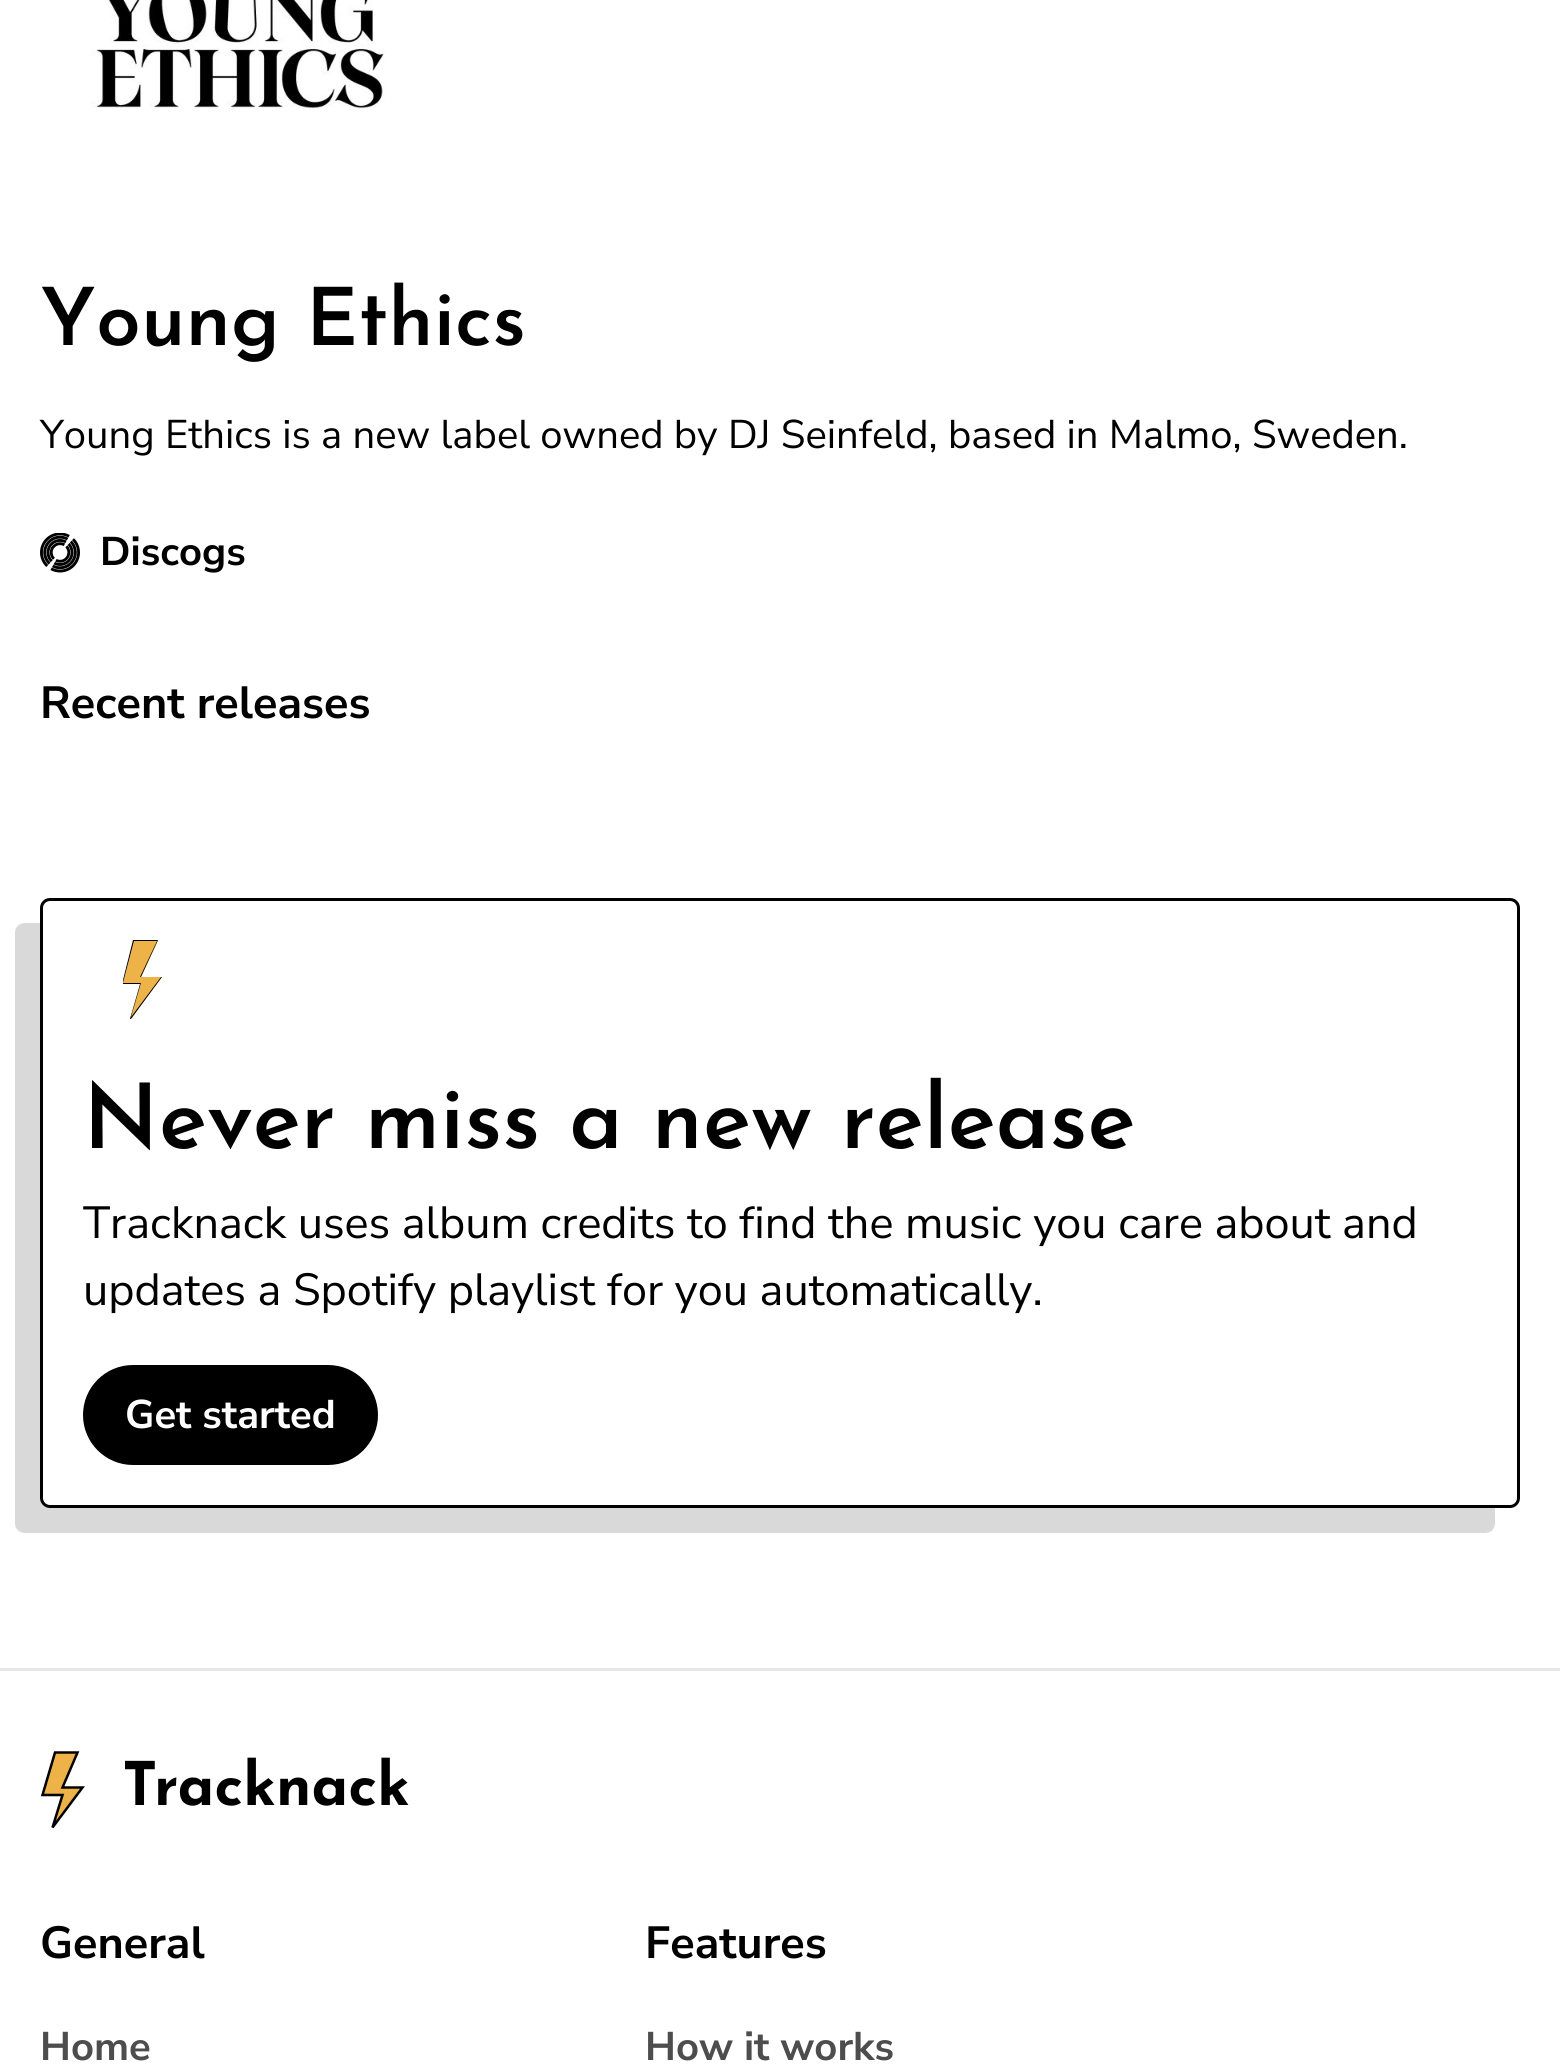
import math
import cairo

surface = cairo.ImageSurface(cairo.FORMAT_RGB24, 1560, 2072)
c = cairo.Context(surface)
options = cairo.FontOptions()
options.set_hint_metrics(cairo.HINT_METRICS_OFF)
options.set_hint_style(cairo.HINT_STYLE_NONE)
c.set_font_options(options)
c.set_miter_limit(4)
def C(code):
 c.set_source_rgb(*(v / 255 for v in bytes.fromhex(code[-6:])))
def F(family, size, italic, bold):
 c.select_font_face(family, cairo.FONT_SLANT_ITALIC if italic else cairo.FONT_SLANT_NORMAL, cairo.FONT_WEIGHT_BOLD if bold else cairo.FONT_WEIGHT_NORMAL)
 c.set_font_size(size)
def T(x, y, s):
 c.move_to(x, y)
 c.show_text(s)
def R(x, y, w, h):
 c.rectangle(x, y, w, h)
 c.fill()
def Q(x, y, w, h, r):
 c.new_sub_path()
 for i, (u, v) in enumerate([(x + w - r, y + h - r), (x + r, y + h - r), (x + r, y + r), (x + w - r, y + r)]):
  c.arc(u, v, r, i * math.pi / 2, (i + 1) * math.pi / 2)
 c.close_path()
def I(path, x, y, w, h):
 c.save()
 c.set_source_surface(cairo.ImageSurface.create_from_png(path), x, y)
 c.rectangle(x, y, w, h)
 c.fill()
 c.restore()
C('ffffff')
c.paint()
I('1.png',91,0,294,110)
F('Josefin Sans SemiBold',80,0,0)
C('000000')
T(40,345,'Young Ethics')
F('Nunito Sans',40,0,0)
T(40,448,'Young Ethics is a new label owned by DJ Seinfeld, based in Malmo, Sweden.')
I('2.png',40,533,40,40)
F('Nunito Sans',40,0,1)
T(100,565,'Discogs')
F('Nunito Sans',45,0,1)
T(40,718,'Recent releases')
C('d9d9d9')
c.new_path()
c.move_to(25,923)
c.curve_to(19,923,15,927,15,933)
c.line_to(15,1523)
c.curve_to(15,1529,19,1533,25,1533)
c.line_to(1485,1533)
c.curve_to(1491,1533,1495,1529,1495,1523)
c.line_to(1495,1508)
c.line_to(50,1508)
c.curve_to(44,1508,40,1503,40,1498)
c.line_to(40,923)
c.close_path()
c.fill()
Q(41.5,899.5,1477,607,8.5)
C('000000')
c.set_line_width(3)
c.stroke()
C('eeb348')
c.new_path()
c.move_to(123,983)
c.line_to(134,941)
c.line_to(158,941)
c.line_to(141,977)
c.line_to(162,977)
c.line_to(130,1019)
c.line_to(141,983)
c.close_path()
c.fill()
c.save()
c.rectangle(123,940,40,80)
c.clip()
C('000000')
c.set_fill_rule(cairo.FILL_RULE_EVEN_ODD)
c.new_path()
c.move_to(133,940)
c.line_to(158,940)
c.line_to(141,977)
c.line_to(162,977)
c.line_to(131,1019)
c.line_to(130,1019)
c.line_to(140,984)
c.line_to(122,984)
c.close_path()
c.move_to(134,941)
c.line_to(123,983)
c.line_to(141,983)
c.line_to(131,1017)
c.line_to(161,977)
c.line_to(140,977)
c.line_to(157,941)
c.close_path()
c.fill()
c.restore()
F('Josefin Sans SemiBold',90,0,0)
C('000000')
T(83,1148,'Never miss a new release')
F('Nunito Sans',45,0,0)
T(83,1238,'Tracknack uses album credits to find the music you care about and')
T(83,1305,'updates a Spotify playlist for you automatically.')
Q(84.5,1366.5,292,97,48.5)
c.fill_preserve()
c.stroke()
F('Nunito Sans',40,0,1)
C('ffffff')
T(125,1428,'Get started')
C('e6e6e6')
R(0,1668,1560,3)
I('3.png',40,1751,369,78)
F('Nunito Sans',45,0,1)
C('000000')
T(40,1958,'General')
F('Nunito Sans',40,0,1)
C('4d4d4d')
T(40,2060,'Home')
F('Nunito Sans',45,0,1)
C('000000')
T(645,1958,'Features')
F('Nunito Sans',40,0,1)
C('4d4d4d')
T(645,2060,'How it works')
surface.write_to_png('o.png')
